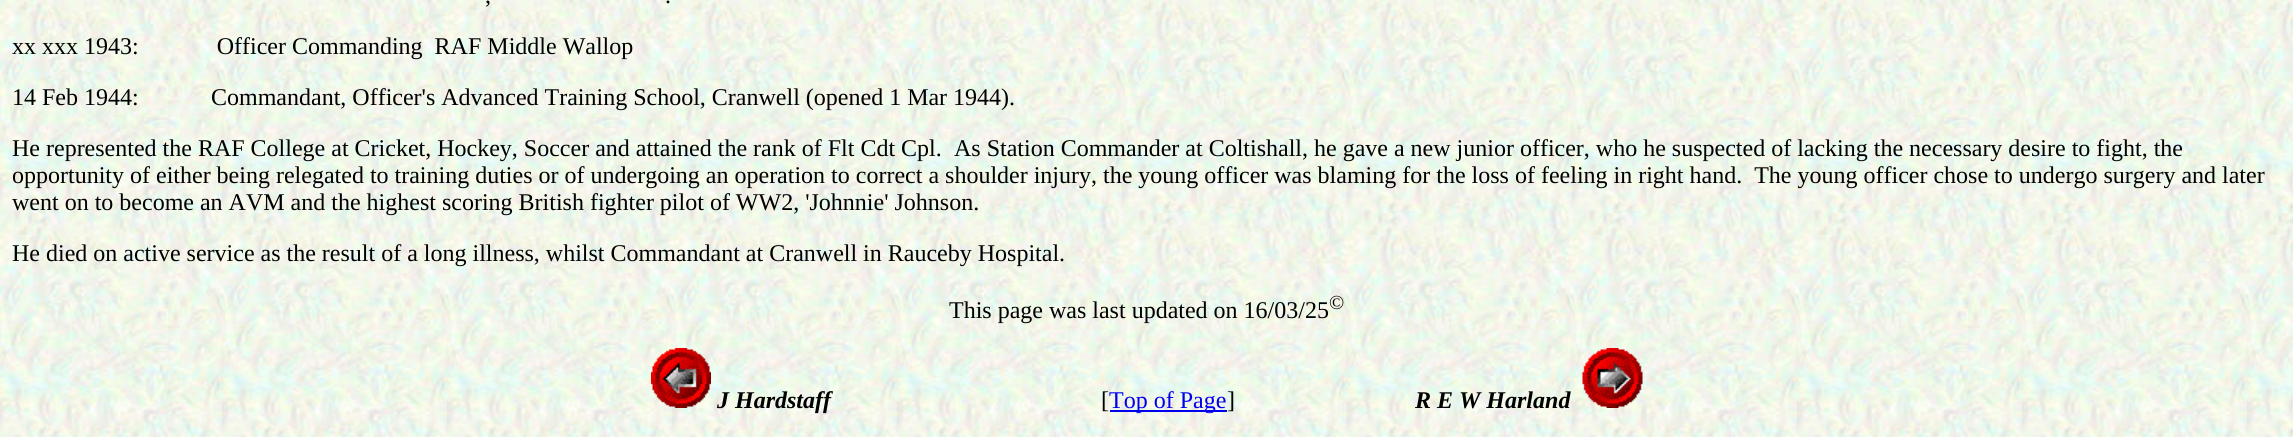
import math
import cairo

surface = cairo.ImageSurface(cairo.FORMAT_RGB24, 2293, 437)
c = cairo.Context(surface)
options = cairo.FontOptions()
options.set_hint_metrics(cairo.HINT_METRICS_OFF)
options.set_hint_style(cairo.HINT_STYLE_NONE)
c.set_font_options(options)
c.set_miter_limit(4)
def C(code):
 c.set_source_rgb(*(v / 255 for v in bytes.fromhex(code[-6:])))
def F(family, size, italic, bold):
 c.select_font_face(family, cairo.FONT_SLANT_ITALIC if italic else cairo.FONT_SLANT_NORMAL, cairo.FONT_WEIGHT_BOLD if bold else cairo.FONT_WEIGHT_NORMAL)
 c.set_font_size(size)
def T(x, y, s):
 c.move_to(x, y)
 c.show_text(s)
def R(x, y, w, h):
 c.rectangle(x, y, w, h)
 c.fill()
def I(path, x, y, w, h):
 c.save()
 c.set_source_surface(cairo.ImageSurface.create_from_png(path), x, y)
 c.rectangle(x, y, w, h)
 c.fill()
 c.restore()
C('ffffff')
c.paint()
I('1.png',0,0,2293,437)
F('Liberation Serif',24,0,0)
C('000000')
T(485,3,',')
T(665,3,'.')
T(12,54,'xx xxx 1943:             Officer Commanding  RAF Middle Wallop')
T(12,105,'14 Feb 1944:')
T(211,105,'Commandant, Officer\'s Advanced Training School, Cranwell (opened 1 Mar 1944).')
T(12,156,'He represented the RAF College at Cricket, Hockey, Soccer and attained the rank of Flt Cdt Cpl.')
T(954,156,'As Station Commander at Coltishall, he gave a new junior officer, who he suspected of lacking the necessary desire to fight, the')
T(12,183,'opportunity of either being relegated to training duties or of undergoing an operation to correct a shoulder injury, the young officer was blaming for the loss of feeling in right hand.  The young officer chose to undergo surgery and later')
T(12,210,'went on to become an AVM and the highest scoring British fighter pilot of WW2, \'Johnnie\' Johnson.')
T(12,261,'He died on active service as the result of a long illness, whilst Commandant at Cranwell in Rauceby Hospital.')
T(949,318,'This page was last updated on 16/03/25')
F('Liberation Serif',20,0,0)
T(1329,309,'©')
I('2.png',651,348,60,60)
F('Liberation Serif',24,1,1)
T(717,408,'J Hardstaff')
F('Liberation Serif',24,0,0)
T(1101,408,'[')
C('0000ee')
R(1110,410,117,2)
T(1109,408,'Top of Page')
C('000000')
T(1227,408,']')
F('Liberation Serif',24,1,1)
T(1415,408,'R E W Harland')
I('3.png',1582,348,61,60)
surface.write_to_png('o.png')
